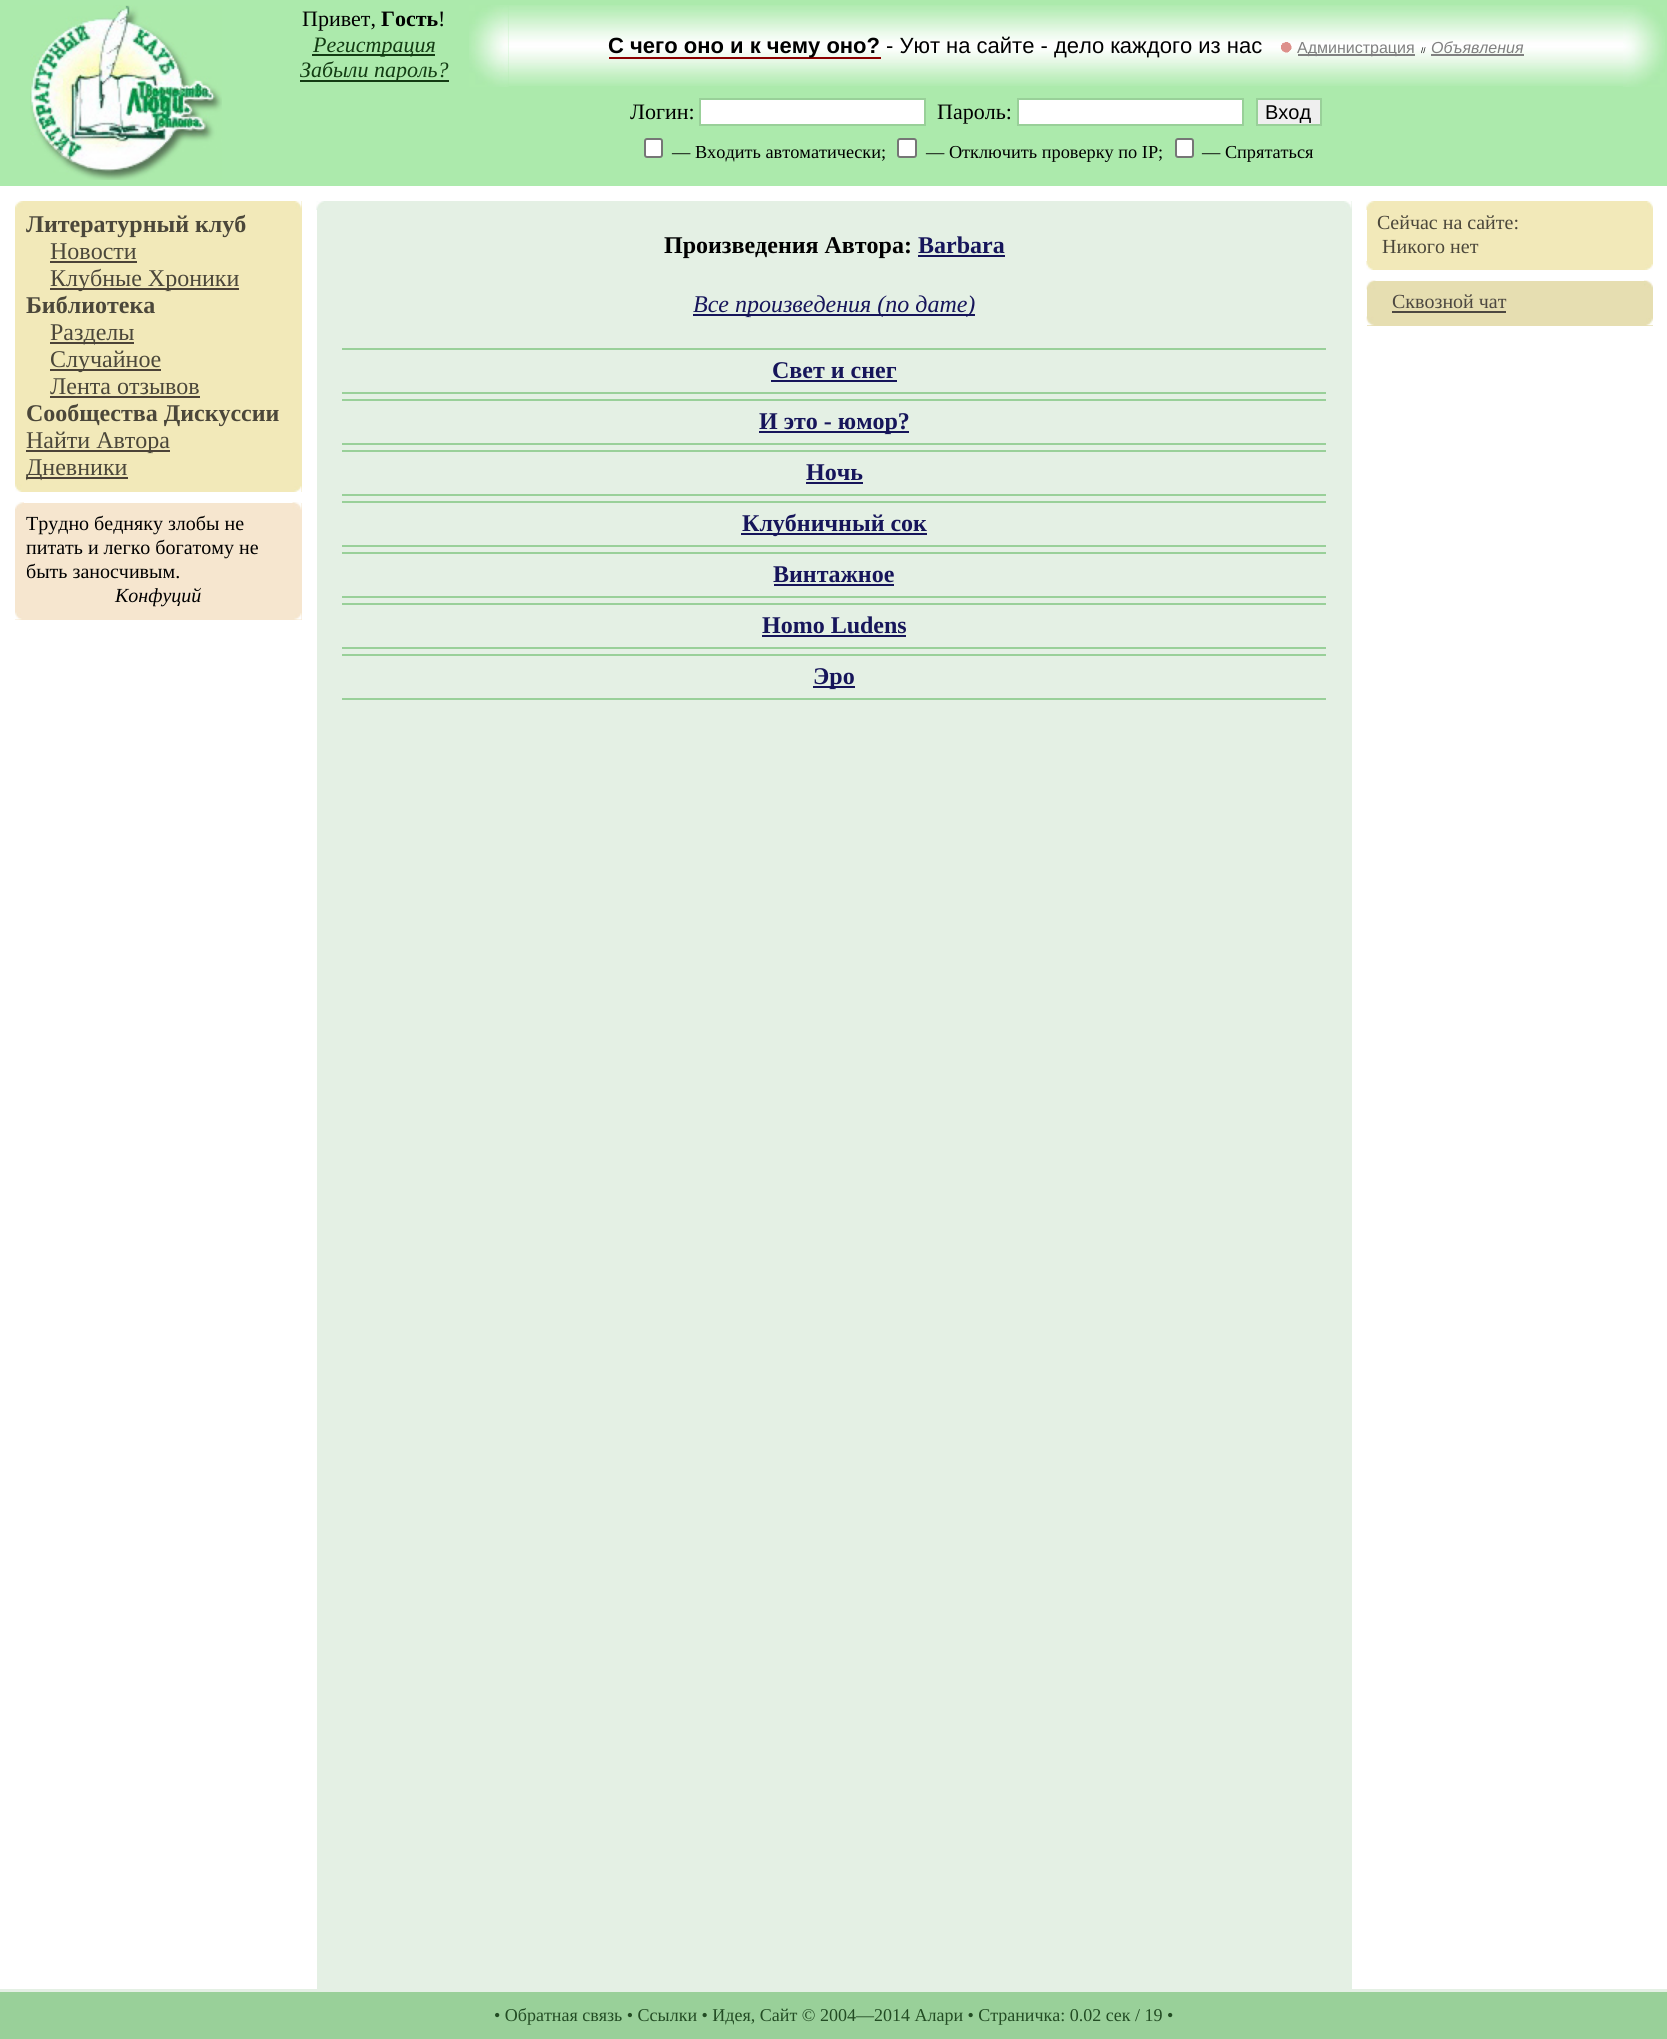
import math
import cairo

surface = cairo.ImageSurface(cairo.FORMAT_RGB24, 1667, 2039)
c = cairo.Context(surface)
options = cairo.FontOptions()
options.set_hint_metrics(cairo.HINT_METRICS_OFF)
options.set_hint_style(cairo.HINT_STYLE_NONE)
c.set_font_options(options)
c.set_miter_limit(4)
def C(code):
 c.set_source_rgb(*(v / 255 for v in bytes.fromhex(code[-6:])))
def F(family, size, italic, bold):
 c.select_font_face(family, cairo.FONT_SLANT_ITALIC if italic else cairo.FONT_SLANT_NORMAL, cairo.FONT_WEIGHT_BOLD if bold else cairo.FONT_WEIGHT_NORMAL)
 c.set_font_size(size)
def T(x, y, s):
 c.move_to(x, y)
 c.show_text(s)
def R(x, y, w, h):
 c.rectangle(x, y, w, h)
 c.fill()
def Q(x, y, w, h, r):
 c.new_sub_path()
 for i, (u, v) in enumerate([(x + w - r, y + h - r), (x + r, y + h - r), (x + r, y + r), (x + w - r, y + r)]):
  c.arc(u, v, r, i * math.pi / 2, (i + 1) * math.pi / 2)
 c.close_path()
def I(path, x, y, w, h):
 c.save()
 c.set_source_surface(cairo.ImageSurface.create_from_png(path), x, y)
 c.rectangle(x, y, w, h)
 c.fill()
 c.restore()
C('ffffff')
c.paint()
C('aceaac')
R(0,0,1667,186)
I('1.png',30,5,192,175)
F('Liberation Serif',22,0,0)
C('000000')
T(302,26,'Привет,')
F('Liberation Serif',22,0,1)
T(381,26,'Гость')
F('Liberation Serif',22,0,0)
T(438,26,'!')
C('133c13')
R(312,54,123,2)
F('Liberation Serif',22,1,0)
T(313,52,'Регистрация')
R(300,80,149,2)
T(300,77,'Забыли пароль?')
I('2.png',469,5,40,82)
I('3.png',508,5,1115,81)
C('8b0000')
R(609,57,272,2)
F('Liberation Sans',22,0,1)
C('000000')
T(608,53,'С чего оно и к чему оно?')
F('Liberation Sans',22,0,0)
T(886,53,'- Уют на сайте - дело каждого из нас')
I('4.png',1281,42,11,11)
C('808080')
R(1298,54,117,2)
F('Liberation Sans',16,0,0)
T(1297,53,'Администрация')
F('Liberation Sans',8,0,0)
C('000000')
T(1421,53,'//')
F('Liberation Sans',16,1,0)
C('808080')
T(1431,53,'Объявления')
R(1431,54,93,2)
I('5.png',1623,5,42,82)
F('Liberation Serif',22,0,0)
C('000000')
T(630,119,'Логин:')
C('ffffff')
c.rectangle(700,99,225,26)
c.fill_preserve()
C('99d099')
c.stroke()
C('000000')
T(937,119,'Пароль:')
C('ffffff')
c.rectangle(1018,99,225,26)
c.fill_preserve()
C('99d099')
c.stroke()
C('efefef')
c.rectangle(1257,99,64,26)
c.fill_preserve()
C('99d099')
c.stroke()
F('Liberation Sans',20,0,0)
C('000000')
T(1265,119,'Вход')
C('ffffff')
Q(645,139,17,18,2)
c.fill_preserve()
C('767676')
c.stroke()
F('Liberation Serif',18.3,0,0)
C('000000')
T(672,158,'— Входить автоматически;')
C('ffffff')
Q(898,139,18,18,2)
c.fill_preserve()
C('767676')
c.stroke()
C('000000')
T(926,158,'— Отключить проверку по IP;')
C('ffffff')
Q(1176,139,17,18,2)
c.fill_preserve()
C('767676')
c.stroke()
C('000000')
T(1202,158,'— Спрятаться')
C('f2e9b9')
R(15,201,287,291)
I('6.png',15,201,8,7)
I('7.png',295,201,7,8)
F('Liberation Serif',24,0,1)
C('4b473a')
T(26,232,'Литературный клуб')
F('Liberation Serif',24,0,0)
T(50,259,'Новости')
C('4c4338')
R(50,261,87,2)
R(50,288,189,2)
C('4b473a')
T(50,286,'Клубные Хроники')
F('Liberation Serif',24,0,1)
T(26,313,'Библиотека')
C('4c4338')
R(50,342,84,2)
F('Liberation Serif',24,0,0)
C('4b473a')
T(50,340,'Разделы')
C('4c4338')
R(50,369,111,2)
C('4b473a')
T(50,367,'Случайное')
T(50,394,'Лента отзывов')
C('4c4338')
R(50,396,150,2)
F('Liberation Serif',24,0,1)
C('4b473a')
T(26,421,'Сообщества Дискуссии')
C('4c4338')
R(26,450,144,2)
F('Liberation Serif',24,0,0)
C('4b473a')
T(26,448,'Найти Автора')
C('4c4338')
R(26,477,102,2)
C('4b473a')
T(26,475,'Дневники')
I('8.png',15,484,7,8)
I('9.png',294,486,8,6)
C('f6e6cf')
R(15,503,287,117)
I('10.png',15,502,9,7)
I('11.png',292,502,10,8)
F('Liberation Serif',20,0,0)
C('000000')
T(26,530,'Трудно бедняку злобы не')
T(26,554,'питать и легко богатому не')
T(26,578,'быть заносчивым.')
F('Liberation Serif',20,1,0)
T(115,602,'Конфуций')
I('12.png',15,612,7,8)
I('13.png',294,613,8,7)
C('e4f0e4')
R(317,201,1035,1788)
I('14.png',316,201,8,9)
I('15.png',1344,201,8,8)
F('Liberation Serif',24,0,1)
C('000000')
T(664,253,'Произведения Автора:')
C('16155a')
T(918,253,'Barbara')
R(918,255,87,2)
R(693,314,282,2)
F('Liberation Serif',24,1,0)
T(693,312,'Все произведения (по дате)')
C('99d099')
R(342,348,984,2)
R(342,392,984,2)
F('Liberation Serif',24,0,1)
C('16155a')
T(772,378,'Свет и снег')
R(771,380,126,2)
C('99d099')
R(342,399,984,2)
R(342,443,984,2)
C('16155a')
R(759,431,150,2)
T(759,429,'И это - юмор?')
C('99d099')
R(342,450,984,2)
R(342,494,984,2)
C('16155a')
T(806,480,'Ночь')
R(806,482,57,2)
C('99d099')
R(342,501,984,2)
R(342,545,984,2)
C('16155a')
R(741,533,186,2)
T(742,531,'Клубничный сок')
C('99d099')
R(342,552,984,2)
R(342,596,984,2)
C('16155a')
T(773,582,'Винтажное')
R(774,584,120,2)
C('99d099')
R(342,603,984,2)
R(342,647,984,2)
C('16155a')
T(762,633,'Homo Ludens')
R(762,635,144,2)
C('99d099')
R(342,654,984,2)
R(342,698,984,2)
C('16155a')
R(813,686,42,2)
T(813,684,'Эро')
C('f2e9b9')
R(1367,201,286,69)
I('16.png',1366,201,8,9)
I('17.png',1647,201,6,8)
F('Liberation Serif',20,0,0)
C('4b473a')
T(1377,229,'Сейчас на сайте:')
T(1382,253,'Никого нет')
I('18.png',1366,261,7,9)
I('19.png',1645,264,8,6)
C('e6deb1')
R(1367,281,286,45)
I('20.png',1366,280,10,10)
I('21.png',1644,280,9,8)
C('4d4841')
T(1392,308,'Сквозной чат')
R(1392,311,114,2)
I('22.png',1366,316,8,10)
I('23.png',1646,318,7,8)
C('99d099')
R(0,1992,1667,47)
C('e4f0e4')
R(0,1989,1667,3)
F('Liberation Serif',18,0,0)
C('224c23')
T(494,2021,'• Обратная связь • Ссылки • Идея, Сайт © 2004—2014 Алари • Страничка: 0.02 сек / 19 •')
surface.write_to_png('o.png')
